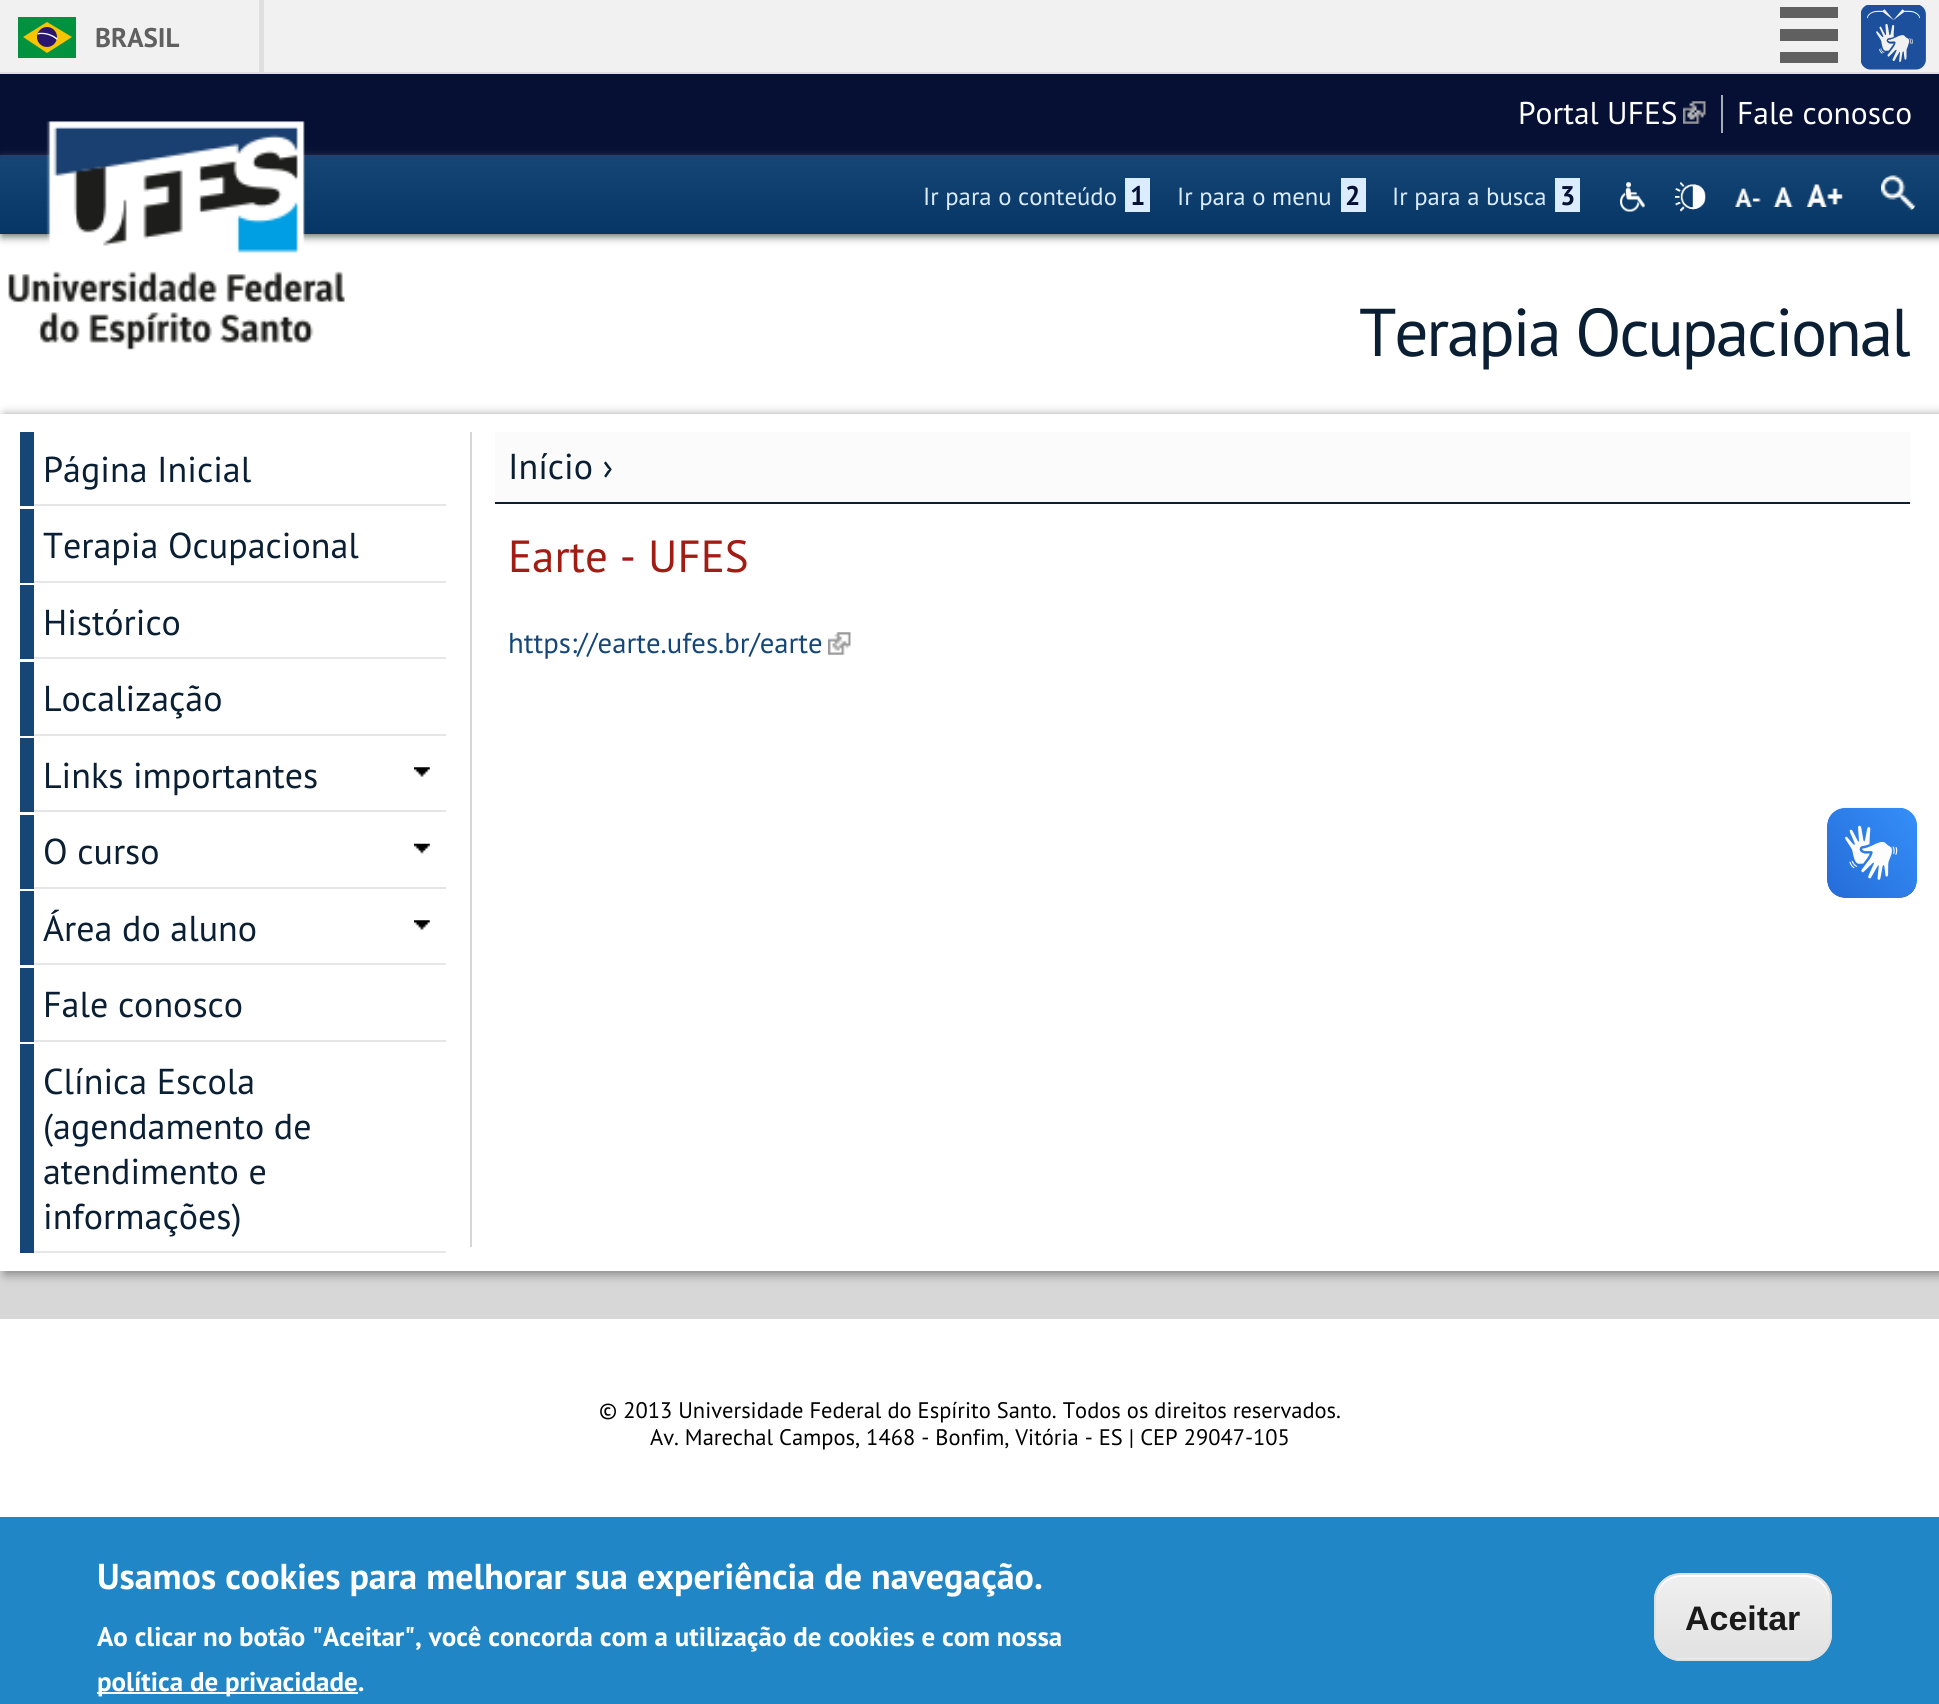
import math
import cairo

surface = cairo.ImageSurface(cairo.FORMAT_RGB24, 1939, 1704)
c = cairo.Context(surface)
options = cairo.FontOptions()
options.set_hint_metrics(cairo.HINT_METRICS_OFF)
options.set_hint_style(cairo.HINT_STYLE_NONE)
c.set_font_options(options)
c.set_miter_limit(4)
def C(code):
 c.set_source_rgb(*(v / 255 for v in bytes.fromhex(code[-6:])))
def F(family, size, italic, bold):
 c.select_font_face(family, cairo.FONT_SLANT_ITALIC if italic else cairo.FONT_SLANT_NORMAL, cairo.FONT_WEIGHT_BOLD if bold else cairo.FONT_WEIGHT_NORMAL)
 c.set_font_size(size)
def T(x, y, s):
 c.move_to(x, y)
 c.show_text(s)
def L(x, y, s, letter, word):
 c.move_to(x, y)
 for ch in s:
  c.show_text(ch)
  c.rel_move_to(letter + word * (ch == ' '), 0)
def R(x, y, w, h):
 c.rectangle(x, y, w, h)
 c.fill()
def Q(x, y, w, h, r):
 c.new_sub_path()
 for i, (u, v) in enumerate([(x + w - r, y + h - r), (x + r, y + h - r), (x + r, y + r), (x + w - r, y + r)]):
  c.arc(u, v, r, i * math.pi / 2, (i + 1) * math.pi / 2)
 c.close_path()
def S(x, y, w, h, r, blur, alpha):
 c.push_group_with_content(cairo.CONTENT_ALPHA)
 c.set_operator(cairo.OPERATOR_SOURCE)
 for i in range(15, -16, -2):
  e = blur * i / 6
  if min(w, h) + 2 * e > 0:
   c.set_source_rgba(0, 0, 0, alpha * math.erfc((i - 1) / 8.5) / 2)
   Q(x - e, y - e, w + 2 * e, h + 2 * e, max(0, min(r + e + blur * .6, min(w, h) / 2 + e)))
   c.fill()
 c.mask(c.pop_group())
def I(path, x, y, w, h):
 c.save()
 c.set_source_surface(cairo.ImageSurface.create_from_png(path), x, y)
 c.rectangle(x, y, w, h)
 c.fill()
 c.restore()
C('ffffff')
c.paint()
C('f1f1f1')
R(0,0,1939,72)
C('dfdfdf')
R(0,72,1939,2)
R(259,0,5,72)
C('00923f')
R(18,17,58,41)
C('f8c300')
c.new_path()
c.move_to(47,22)
c.line_to(23,37)
c.line_to(47,53)
c.line_to(72,37)
c.close_path()
c.fill()
C('28166f')
c.arc(47,37,10,0,2 * math.pi)
c.fill()
C('ffffff')
c.new_path()
c.move_to(41,34)
c.curve_to(47,34,52.5,36,57,40)
c.line_to(57.5,38.5)
c.curve_to(52,34,45,32,38,33)
c.line_to(37.5,34.5)
c.close_path()
c.fill()
F('PT Sans',27,0,1)
C('606060')
T(95,47,'BRASIL')
R(1780,7,58,11)
R(1780,29,58,12)
R(1780,52,58,11)
I('1.png',1861,5,65,65)
C('051034')
R(0,74,1939,81)
C('a4aeb9')
R(1721,95,2,38)
F('PT Sans',31.5,0,0)
C('ffffff')
T(1518,124,'Portal UFES')
I('2.png',1683,101,23,23)
T(1737,124,'Fale conosco')
C('595959')
S(2,158,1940,78,0,4.5,1)
gradient = cairo.LinearGradient(970,155,970,234)
gradient.add_color_stop_rgba(0,0.082,0.275,0.459,1)
gradient.add_color_stop_rgba(1,0.02,0.212,0.4,1)
c.set_source(gradient)
R(0,155,1939,79)
I('3.png',8,121,337,229)
F('PT Sans',24.75,0,0)
C('dcecff')
T(923,205,'Ir para o conteúdo')
R(1125,178,25,34)
F('PT Sans',27,0,1)
C('051034')
T(1130,205,'1')
F('PT Sans',24.75,0,0)
C('dcecff')
T(1177,205,'Ir para o menu')
R(1341,178,25,34)
F('PT Sans',27,0,1)
C('051034')
T(1345,205,'2')
F('PT Sans',24.75,0,0)
C('dcecff')
T(1392,205,'Ir para a busca')
R(1555,178,25,34)
F('PT Sans',27,0,1)
C('051034')
T(1560,205,'3')
I('4.png',1620,182,25,30)
I('5.png',1674,182,32,30)
I('6.png',1735,188,26,19)
I('7.png',1773,187,20,20)
I('8.png',1805,184,38,23)
I('9.png',1881,175,35,35)
F('PT Sans',67.5,0,0)
C('0a1f33')
L(1359,356,'Terapia Ocupacional',-2.25,0)
C('d7d7d7')
R(0,1271,1939,48)
C('808080')
S(5,416,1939,858,0,5.5,1)
C('ffffff')
R(0,414,1939,857)
C('154676')
R(20,432,14,74)
C('e6e6e6')
R(34,504,412,2)
F('PT Sans',36,0,0)
C('0a1f33')
T(43,482,'Página Inicial')
C('154676')
R(20,509,14,74)
C('e6e6e6')
R(34,581,412,2)
C('0a1f33')
T(43,558,'Terapia Ocupacional')
C('154676')
R(20,585,14,74)
C('e6e6e6')
R(34,657,412,2)
C('0a1f33')
T(43,635,'Histórico')
C('154676')
R(20,662,14,74)
C('e6e6e6')
R(34,734,412,2)
C('0a1f33')
T(43,711,'Localização')
C('154676')
R(20,738,14,74)
I('10.png',414,767,16,10)
C('e6e6e6')
R(34,810,412,2)
C('0a1f33')
T(43,788,'Links importantes')
C('154676')
R(20,815,14,74)
I('11.png',414,843,16,11)
C('e6e6e6')
R(34,887,412,2)
C('0a1f33')
T(43,864,'O curso')
C('154676')
R(20,891,14,74)
I('10.png',414,920,16,10)
C('e6e6e6')
R(34,963,412,2)
C('0a1f33')
T(43,941,'Área do aluno')
C('154676')
R(20,968,14,74)
C('e6e6e6')
R(34,1040,412,2)
C('0a1f33')
T(43,1017,'Fale conosco')
C('154676')
R(20,1044,14,209)
C('e6e6e6')
R(34,1251,412,2)
C('0a1f33')
T(43,1094,'Clínica Escola')
T(43,1139,'(agendamento de')
T(43,1184,'atendimento e')
T(43,1229,'informações)')
C('d6d6d6')
R(470,432,2,815)
C('fbfbfb')
R(495,432,1415,70)
C('0a1f33')
R(495,502,1415,2)
T(508,479,'Início ›')
F('PT Sans',45,0,0)
C('a11d14')
T(508,572,'Earte - UFES')
F('PT Sans',28.75,0,0)
C('154678')
T(508,653,'https://earte.ufes.br/earte')
I('12.png',828,632,23,23)
I('13.png',1827,807,90,91)
I('14.png',1827,808,90,90)
F('PT Sans',22.5,0,0)
C('000000')
T(599,1418,'© 2013 Universidade Federal do Espírito Santo. Todos os direitos reservados.')
T(650,1445,'Av. Marechal Campos, 1468 - Bonfim, Vitória - ES | CEP 29047-105')
C('2086c5')
R(0,1517,1939,187)
F('PT Sans',36,0,1)
C('ffffff')
T(97,1589,'Usamos cookies para melhorar sua experiência de navegação.')
F('PT Sans',27,0,1)
T(97,1646,'Ao clicar no botão "Aceitar", você concorda com a utilização de cookies e com nossa')
R(97,1692,261,2)
T(97,1691,'política de privacidade.')
c.save()
Q(1654,1573,178,88,27)
c.clip()
gradient = cairo.LinearGradient(1743,1575,1743,1658)
gradient.add_color_stop_rgba(.05,0.937,0.937,0.937,1)
gradient.add_color_stop_rgba(1,0.886,0.886,0.886,1)
c.set_source(gradient)
R(1654,1575,178,83)
gradient = cairo.LinearGradient(1743,1658,1743,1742)
gradient.add_color_stop_rgba(.05,0.937,0.937,0.937,1)
gradient.add_color_stop_rgba(1,0.886,0.886,0.886,1)
c.set_source(gradient)
R(1668,1658,150,3)
c.restore()
c.new_path()
c.move_to(1681,1577)
c.line_to(1804,1577)
c.curve_to(1818,1577,1829,1588,1829,1602)
c.line_to(1829,1600)
c.curve_to(1829,1586,1818,1575,1804,1575)
c.line_to(1681,1575)
c.curve_to(1667,1575,1656,1586,1656,1600)
c.line_to(1656,1602)
c.curve_to(1656,1588,1667,1577,1681,1577)
c.close_path()
c.fill()
Q(1655,1574,176,86,26)
C('e0e0e0')
c.stroke()
F('Liberation Sans',34,0,1)
C('1a1a1a')
T(1685,1630,'Aceitar')
surface.write_to_png('o.png')
